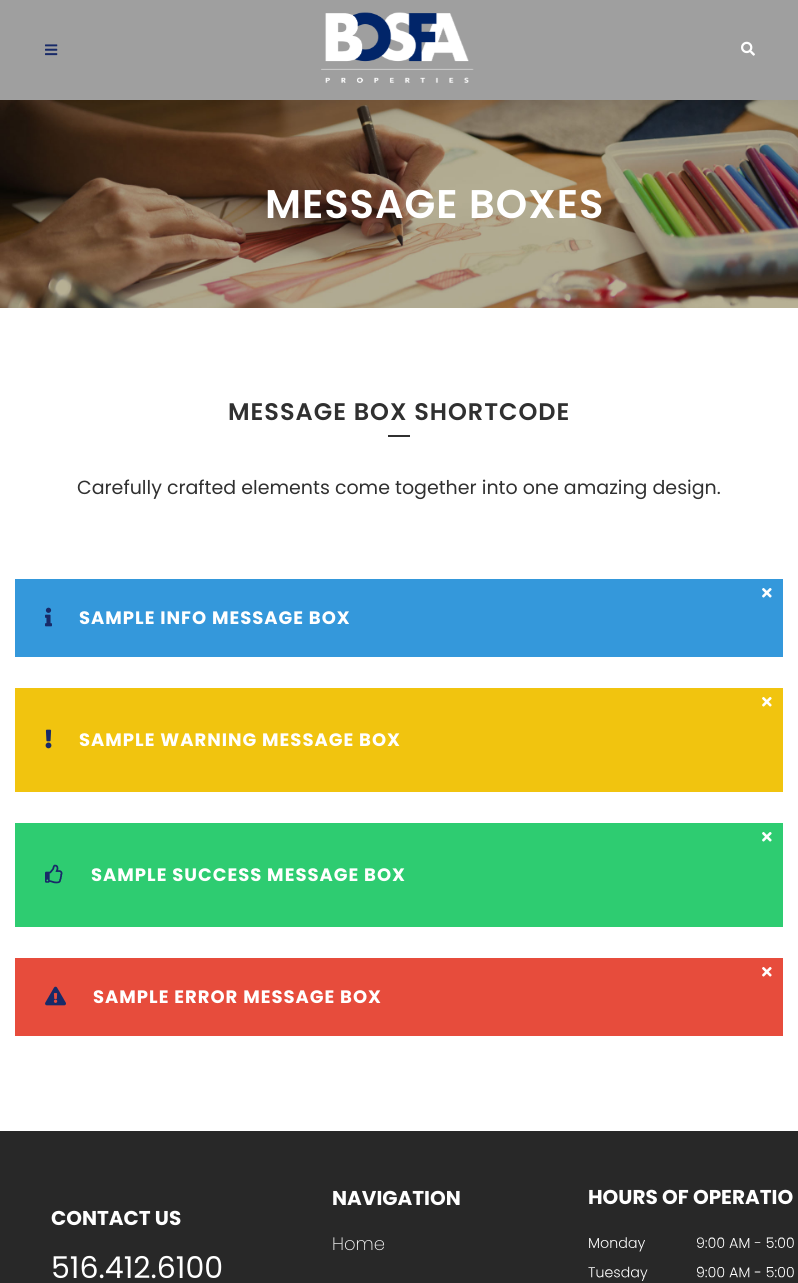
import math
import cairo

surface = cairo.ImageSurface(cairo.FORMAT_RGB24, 798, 1283)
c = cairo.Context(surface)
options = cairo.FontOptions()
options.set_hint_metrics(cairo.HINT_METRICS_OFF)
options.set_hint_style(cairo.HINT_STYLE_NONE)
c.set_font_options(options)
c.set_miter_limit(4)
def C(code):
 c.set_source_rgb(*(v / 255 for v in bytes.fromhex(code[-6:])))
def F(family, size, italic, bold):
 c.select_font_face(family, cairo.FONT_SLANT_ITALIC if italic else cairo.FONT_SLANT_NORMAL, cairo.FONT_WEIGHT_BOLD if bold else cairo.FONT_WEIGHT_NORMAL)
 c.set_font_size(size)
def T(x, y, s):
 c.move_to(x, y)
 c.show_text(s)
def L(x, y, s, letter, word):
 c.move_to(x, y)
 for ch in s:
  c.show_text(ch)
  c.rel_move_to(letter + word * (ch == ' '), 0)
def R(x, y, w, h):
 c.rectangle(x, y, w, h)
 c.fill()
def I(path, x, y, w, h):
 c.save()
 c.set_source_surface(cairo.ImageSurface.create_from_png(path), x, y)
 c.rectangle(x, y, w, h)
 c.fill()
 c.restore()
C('ffffff')
c.paint()
C('9f9f9f')
R(0,0,798,100)
I('1.png',45,44,13,12)
I('2.png',321,12,153,71)
I('3.png',741,41,14,15)
I('4.png',0,100,798,208)
F('Poppins SemiBold',40,0,0)
C('ffffff')
L(265,218,'MESSAGE BOXES',1,0)
F('Poppins SemiBold',24,0,0)
C('303030')
L(228,420,'MESSAGE BOX SHORTCODE',1,0)
R(388,435,22,2)
F('Poppins',19,0,0)
T(77,494,'Carefully crafted elements come together into one amazing design.')
C('3498db')
R(15,579,768,78)
I('5.png',762,588,10,10)
I('6.png',45,607,7,20)
F('Poppins',18,0,1)
C('ffffff')
L(79,624,'SAMPLE INFO MESSAGE BOX',1,0)
C('f1c40f')
R(15,688,768,104)
I('7.png',762,697,10,10)
I('8.png',45,729,7,20)
C('ffffff')
L(79,746,'SAMPLE WARNING MESSAGE BOX',1,0)
C('2ecc71')
R(15,823,768,104)
I('9.png',762,832,10,10)
I('10.png',45,864,18,20)
C('ffffff')
L(91,881,'SAMPLE SUCCESS MESSAGE BOX',1,0)
C('e74c3c')
R(15,958,768,78)
I('11.png',762,967,10,10)
I('12.png',45,986,21,20)
C('ffffff')
L(93,1003,'SAMPLE ERROR MESSAGE BOX',1,0)
C('282828')
R(0,1131,798,152)
F('Poppins',20,0,1)
C('ffffff')
T(51,1225,'CONTACT US')
F('Poppins',30,0,0)
T(51,1278,'516.412.6100')
F('Poppins',20,0,1)
T(332,1205,'NAVIGATION')
F('Poppins ExtraLight',18,0,0)
T(332,1250,'Home')
F('Poppins',20,0,1)
T(588,1204,'HOURS OF OPERATIO')
I('13.png',588,1237,206,44)
surface.write_to_png('o.png')
